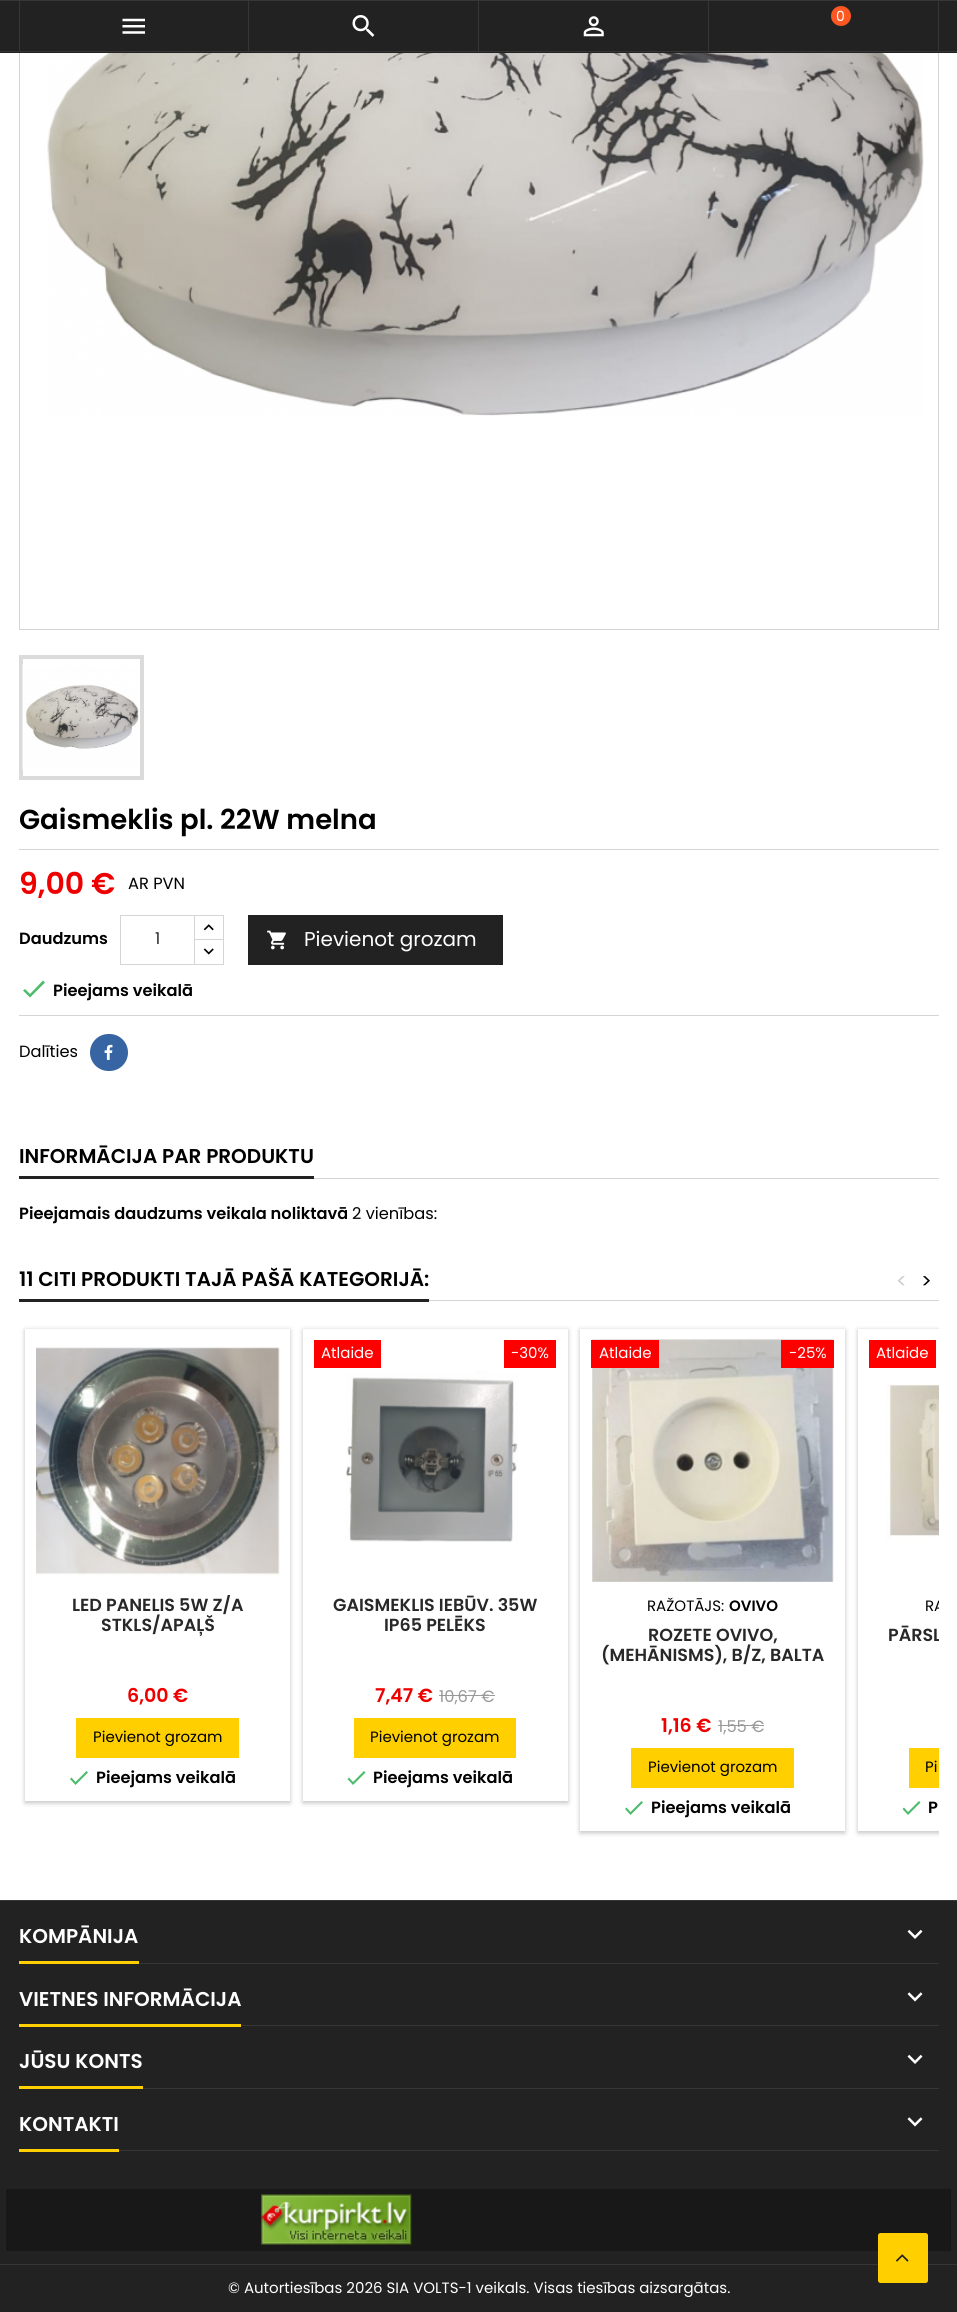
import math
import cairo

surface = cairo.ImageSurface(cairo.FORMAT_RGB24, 957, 2312)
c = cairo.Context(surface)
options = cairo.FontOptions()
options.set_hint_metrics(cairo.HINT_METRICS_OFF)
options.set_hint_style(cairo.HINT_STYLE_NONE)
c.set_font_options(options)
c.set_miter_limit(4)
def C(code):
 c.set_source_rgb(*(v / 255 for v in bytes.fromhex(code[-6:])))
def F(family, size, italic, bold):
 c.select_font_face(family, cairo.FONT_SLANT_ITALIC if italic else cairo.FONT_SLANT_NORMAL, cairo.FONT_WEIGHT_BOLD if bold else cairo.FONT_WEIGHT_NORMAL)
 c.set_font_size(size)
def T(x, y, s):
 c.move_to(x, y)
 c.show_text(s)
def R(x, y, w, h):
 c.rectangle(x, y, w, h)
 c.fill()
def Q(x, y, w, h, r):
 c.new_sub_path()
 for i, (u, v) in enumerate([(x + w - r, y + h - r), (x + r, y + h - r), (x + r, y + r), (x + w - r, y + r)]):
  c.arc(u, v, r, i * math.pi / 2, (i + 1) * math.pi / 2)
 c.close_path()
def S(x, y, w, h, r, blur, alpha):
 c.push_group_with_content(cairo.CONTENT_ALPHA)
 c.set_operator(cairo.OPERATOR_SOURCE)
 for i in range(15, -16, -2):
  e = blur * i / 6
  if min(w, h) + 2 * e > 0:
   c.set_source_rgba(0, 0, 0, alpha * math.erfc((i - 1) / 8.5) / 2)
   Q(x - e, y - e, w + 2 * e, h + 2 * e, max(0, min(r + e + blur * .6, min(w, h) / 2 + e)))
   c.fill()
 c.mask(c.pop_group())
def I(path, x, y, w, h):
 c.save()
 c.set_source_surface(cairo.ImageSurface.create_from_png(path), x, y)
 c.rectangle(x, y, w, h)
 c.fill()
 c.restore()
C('ffffff')
c.paint()
c.rectangle(19.5,-.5,919,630)
C('d6d4d4')
c.set_line_width(1)
c.stroke()
C('222222')
R(0,1,957,52)
C('363636')
R(0,0,957,1)
R(0,51,957,1)
R(248,1,1,50)
R(19,1,1,50)
I('1.png',122,18,23,16)
R(478,1,1,50)
I('2.png',352,15,23,22)
R(708,1,1,50)
I('3.png',583,16,21,21)
R(938,1,1,50)
C('ff5722')
c.arc(841,16,10,0,2 * math.pi)
c.fill()
F('Poppins',14,0,0)
C('ffffff')
T(836,21,'0')
I('4.png',47,53,877,363)
c.rectangle(21,657,121,121)
C('dbdbdb')
c.set_line_width(4)
c.stroke()
I('5.png',22,664,117,106)
F('Poppins SemiBold',27.5,0,0)
C('000000')
T(19,829,'Gaismeklis pl. 22W melna')
C('d6d4d4')
R(19,849,920,1)
F('Poppins SemiBold',30,0,0)
C('ee0000')
T(19,894,'9,00 €')
F('Poppins',16.25,0,0)
C('000000')
T(128,889,'AR PVN')
F('Poppins SemiBold',16.25,0,0)
T(19,944,'Daudzums')
c.rectangle(194.5,915.5,29,25)
C('d6d4d4')
c.set_line_width(1)
c.stroke()
C('ffffff')
R(195,940,28,1)
c.rectangle(194.5,939.5,29,25)
C('d6d4d4')
c.stroke()
c.rectangle(120.5,915.5,74,49)
c.stroke()
F('Poppins',16.25,0,0)
C('282828')
T(155,944,'1')
I('6.png',203,924,11,7)
I('7.png',203,948,11,7)
C('222222')
R(248,915,255,50)
I('8.png',267,930,19,20)
F('Poppins',20,0,0)
C('ffffff')
T(304,946,'Pievienot grozam')
C('4cbb6c')
c.new_path()
c.move_to(30,994)
c.line_to(43,980.5)
c.line_to(45,982.5)
c.line_to(30,997.5)
c.line_to(23,990.5)
c.line_to(25,989)
c.close_path()
c.fill()
F('Poppins SemiBold',16.25,0,0)
C('000000')
T(53,996,'Pieejams veikalā')
C('d6d4d4')
R(19,1015,920,1)
F('Poppins',16.25,0,0)
C('000000')
T(19,1057,'Dalīties')
C('3765a3')
Q(90,1034,38,37,18.5)
c.fill()
I('9.png',104,1044,9,16)
C('d6d4d4')
R(314,1178,625,1)
C('222222')
R(19,1176,295,3)
F('Poppins SemiBold',20,0,0)
C('000000')
T(19,1163,'INFORMĀCIJA PAR PRODUKTU')
F('Poppins SemiBold',16.25,0,0)
T(19,1219,'Pieejamais daudzums veikala noliktavā')
F('Poppins',16.25,0,0)
T(352,1219,'2 vienības:')
C('d6d4d4')
R(429,1300,510,1)
C('222222')
R(19,1299,410,3)
F('Poppins SemiBold',20,0,0)
C('000000')
T(19,1286,'11 CITI PRODUKTI TAJĀ PAŠĀ KATEGORIJĀ:')
F('Poppins',20,0,0)
C('cccccc')
T(896,1288,'<')
C('000000')
T(921,1288,'>')
c.save()
c.set_fill_rule(cairo.FILL_RULE_EVEN_ODD)
c.new_path()
c.move_to(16,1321)
c.line_to(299,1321)
c.line_to(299,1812)
c.line_to(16,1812)
c.close_path()
c.move_to(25,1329)
c.line_to(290,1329)
c.line_to(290,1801)
c.line_to(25,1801)
c.close_path()
c.clip()
C('000000')
S(25,1330,265,473,0,2.5,.24)
c.restore()
I('10.png',36,1347,244,229)
c.save()
c.rectangle(36,1595,243,40)
c.clip()
F('Poppins SemiBold',17.5,0,0)
C('282828')
T(72,1611,'LED PANELIS 5W Z/A')
c.restore()
F('Poppins SemiBold',17.5,0,0)
C('282828')
T(101,1631,'STKLS/APAĻŠ')
F('Poppins SemiBold',19,0,0)
C('ee0000')
T(127,1702,'6,00 €')
C('ffcf00')
R(76,1718,163,40)
F('Poppins',15,0,0)
C('000000')
T(93,1742,'Pievienot grozam')
C('4cbb6c')
c.new_path()
c.move_to(75.5,1782)
c.line_to(86.5,1771)
c.line_to(88,1772.5)
c.line_to(75.5,1785)
c.line_to(70,1779)
c.line_to(71.5,1777.5)
c.close_path()
c.fill()
F('Poppins SemiBold',16.25,0,0)
C('000000')
T(96,1783,'Pieejams veikalā')
C('000000')
S(303,1330,265,473,0,2.5,.24)
C('ffffff')
R(303,1329,265,472)
C('ff0000')
R(314,1340,67,28)
F('Poppins',15,0,0)
C('ffffff')
T(321,1358,'Atlaide')
C('ff0000')
R(504,1340,52,28)
C('ffffff')
T(511,1358,'-30%')
I('11.png',346,1371,172,171)
F('Poppins SemiBold',17.5,0,0)
C('282828')
T(333,1611,'GAISMEKLIS IEBŪV. 35W')
T(384,1631,'IP65 PELĒKS')
F('Poppins SemiBold',19,0,0)
C('ee0000')
T(375,1702,'7,47 €')
F('Poppins',16.25,0,0)
C('999999')
T(439,1702,'10,67 €')
R(439,1695,56,1)
C('ffcf00')
R(354,1718,162,40)
F('Poppins',15,0,0)
C('000000')
T(370,1742,'Pievienot grozam')
C('4cbb6c')
c.new_path()
c.move_to(353,1782)
c.line_to(364,1771)
c.line_to(365.5,1772.5)
c.line_to(353,1785)
c.line_to(347.5,1779)
c.line_to(349,1777.5)
c.close_path()
c.fill()
F('Poppins SemiBold',16.25,0,0)
C('000000')
T(373,1783,'Pieejams veikalā')
c.save()
c.set_fill_rule(cairo.FILL_RULE_EVEN_ODD)
c.new_path()
c.move_to(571,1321)
c.line_to(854,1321)
c.line_to(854,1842)
c.line_to(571,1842)
c.close_path()
c.move_to(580,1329)
c.line_to(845,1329)
c.line_to(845,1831)
c.line_to(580,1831)
c.close_path()
c.clip()
C('000000')
S(580,1330,265,503,0,2.5,.24)
c.restore()
I('12.png',591,1339,243,243)
C('ff0000')
R(591,1340,68,28)
F('Poppins',15,0,0)
C('ffffff')
T(599,1358,'Atlaide')
C('ff0000')
R(781,1340,53,28)
C('ffffff')
T(789,1358,'-25%')
C('000000')
T(647,1611,'RAŽOTĀJS:')
F('Poppins SemiBold',15,0,0)
T(729,1611,'OVIVO')
F('Poppins SemiBold',17.5,0,0)
C('282828')
T(648,1641,'ROZETE OVIVO,')
T(601,1661,'(MEHĀNISMS), B/Z, BALTA')
F('Poppins SemiBold',19,0,0)
C('ee0000')
T(661,1732,'1,16 €')
F('Poppins',16.25,0,0)
C('999999')
T(718,1732,'1,55 €')
R(718,1725,46,1)
C('ffcf00')
R(631,1748,163,40)
F('Poppins',15,0,0)
C('000000')
T(648,1772,'Pievienot grozam')
C('4cbb6c')
c.new_path()
c.move_to(630.5,1812)
c.line_to(641.5,1801)
c.line_to(643,1802.5)
c.line_to(630.5,1815)
c.line_to(625,1809)
c.line_to(626.5,1807.5)
c.close_path()
c.fill()
F('Poppins SemiBold',16.25,0,0)
C('000000')
T(651,1813,'Pieejams veikalā')
c.save()
c.rectangle(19,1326,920,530)
c.clip()
c.set_fill_rule(cairo.FILL_RULE_EVEN_ODD)
c.new_path()
c.move_to(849,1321)
c.line_to(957,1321)
c.line_to(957,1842)
c.line_to(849,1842)
c.close_path()
c.move_to(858,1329)
c.line_to(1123,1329)
c.line_to(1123,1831)
c.line_to(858,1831)
c.close_path()
c.clip()
C('000000')
S(858,1330,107,503,0,2.5,.24)
c.restore()
C('ff0000')
R(869,1340,67,28)
F('Poppins',15,0,0)
C('ffffff')
T(876,1358,'Atlaide')
I('13.png',886,1384,53,155)
c.save()
c.rectangle(19,1326,920,530)
c.clip()
C('000000')
T(925,1611,'RA')
c.restore()
c.save()
c.rectangle(869,1625,70,40)
c.clip()
F('Poppins SemiBold',17.5,0,0)
C('282828')
T(888,1641,'PĀRSL')
c.restore()
C('ffcf00')
R(909,1748,30,40)
C('000000')
T(925,1772,'Pi')
C('4cbb6c')
c.new_path()
c.move_to(908,1812)
c.line_to(919,1801)
c.line_to(920.5,1802.5)
c.line_to(908,1815)
c.line_to(902.5,1809)
c.line_to(904,1807.5)
c.close_path()
c.fill()
F('Poppins SemiBold',16.25,0,0)
C('000000')
T(928,1813,'P')
C('222222')
R(0,1901,957,363)
C('363636')
R(0,1900,957,1)
R(139,1963,800,1)
C('ffcf00')
R(19,1961,120,3)
F('Poppins SemiBold',20,0,0)
C('ffffff')
T(19,1943,'KOMPĀNIJA')
I('14.png',907,1929,16,10)
C('363636')
R(241,2025,698,1)
C('ffcf00')
R(19,2024,222,3)
C('ffffff')
T(19,2006,'VIETNES INFORMĀCIJA')
I('15.png',907,1992,16,10)
C('363636')
R(143,2088,796,1)
C('ffcf00')
R(19,2086,124,3)
C('ffffff')
T(19,2068,'JŪSU KONTS')
I('14.png',907,2054,16,10)
C('363636')
R(119,2150,820,1)
C('ffcf00')
R(19,2149,100,3)
C('ffffff')
T(19,2131,'KONTAKTI')
I('15.png',907,2117,16,10)
C('181818')
R(6,2189,945,62)
C('222222')
R(0,2265,957,47)
C('363636')
R(0,2264,957,1)
C('ffcf00')
Q(878,2233,50,50,2.5)
c.fill()
I('16.png',896,2254,13,8)
I('17.png',261,2194,151,51)
F('Poppins',15,0,0)
C('ffffff')
T(228,2293,'© Autortiesības 2026 SIA VOLTS-1 veikals. Visas tiesības aizsargātas.')
surface.write_to_png('o.png')
